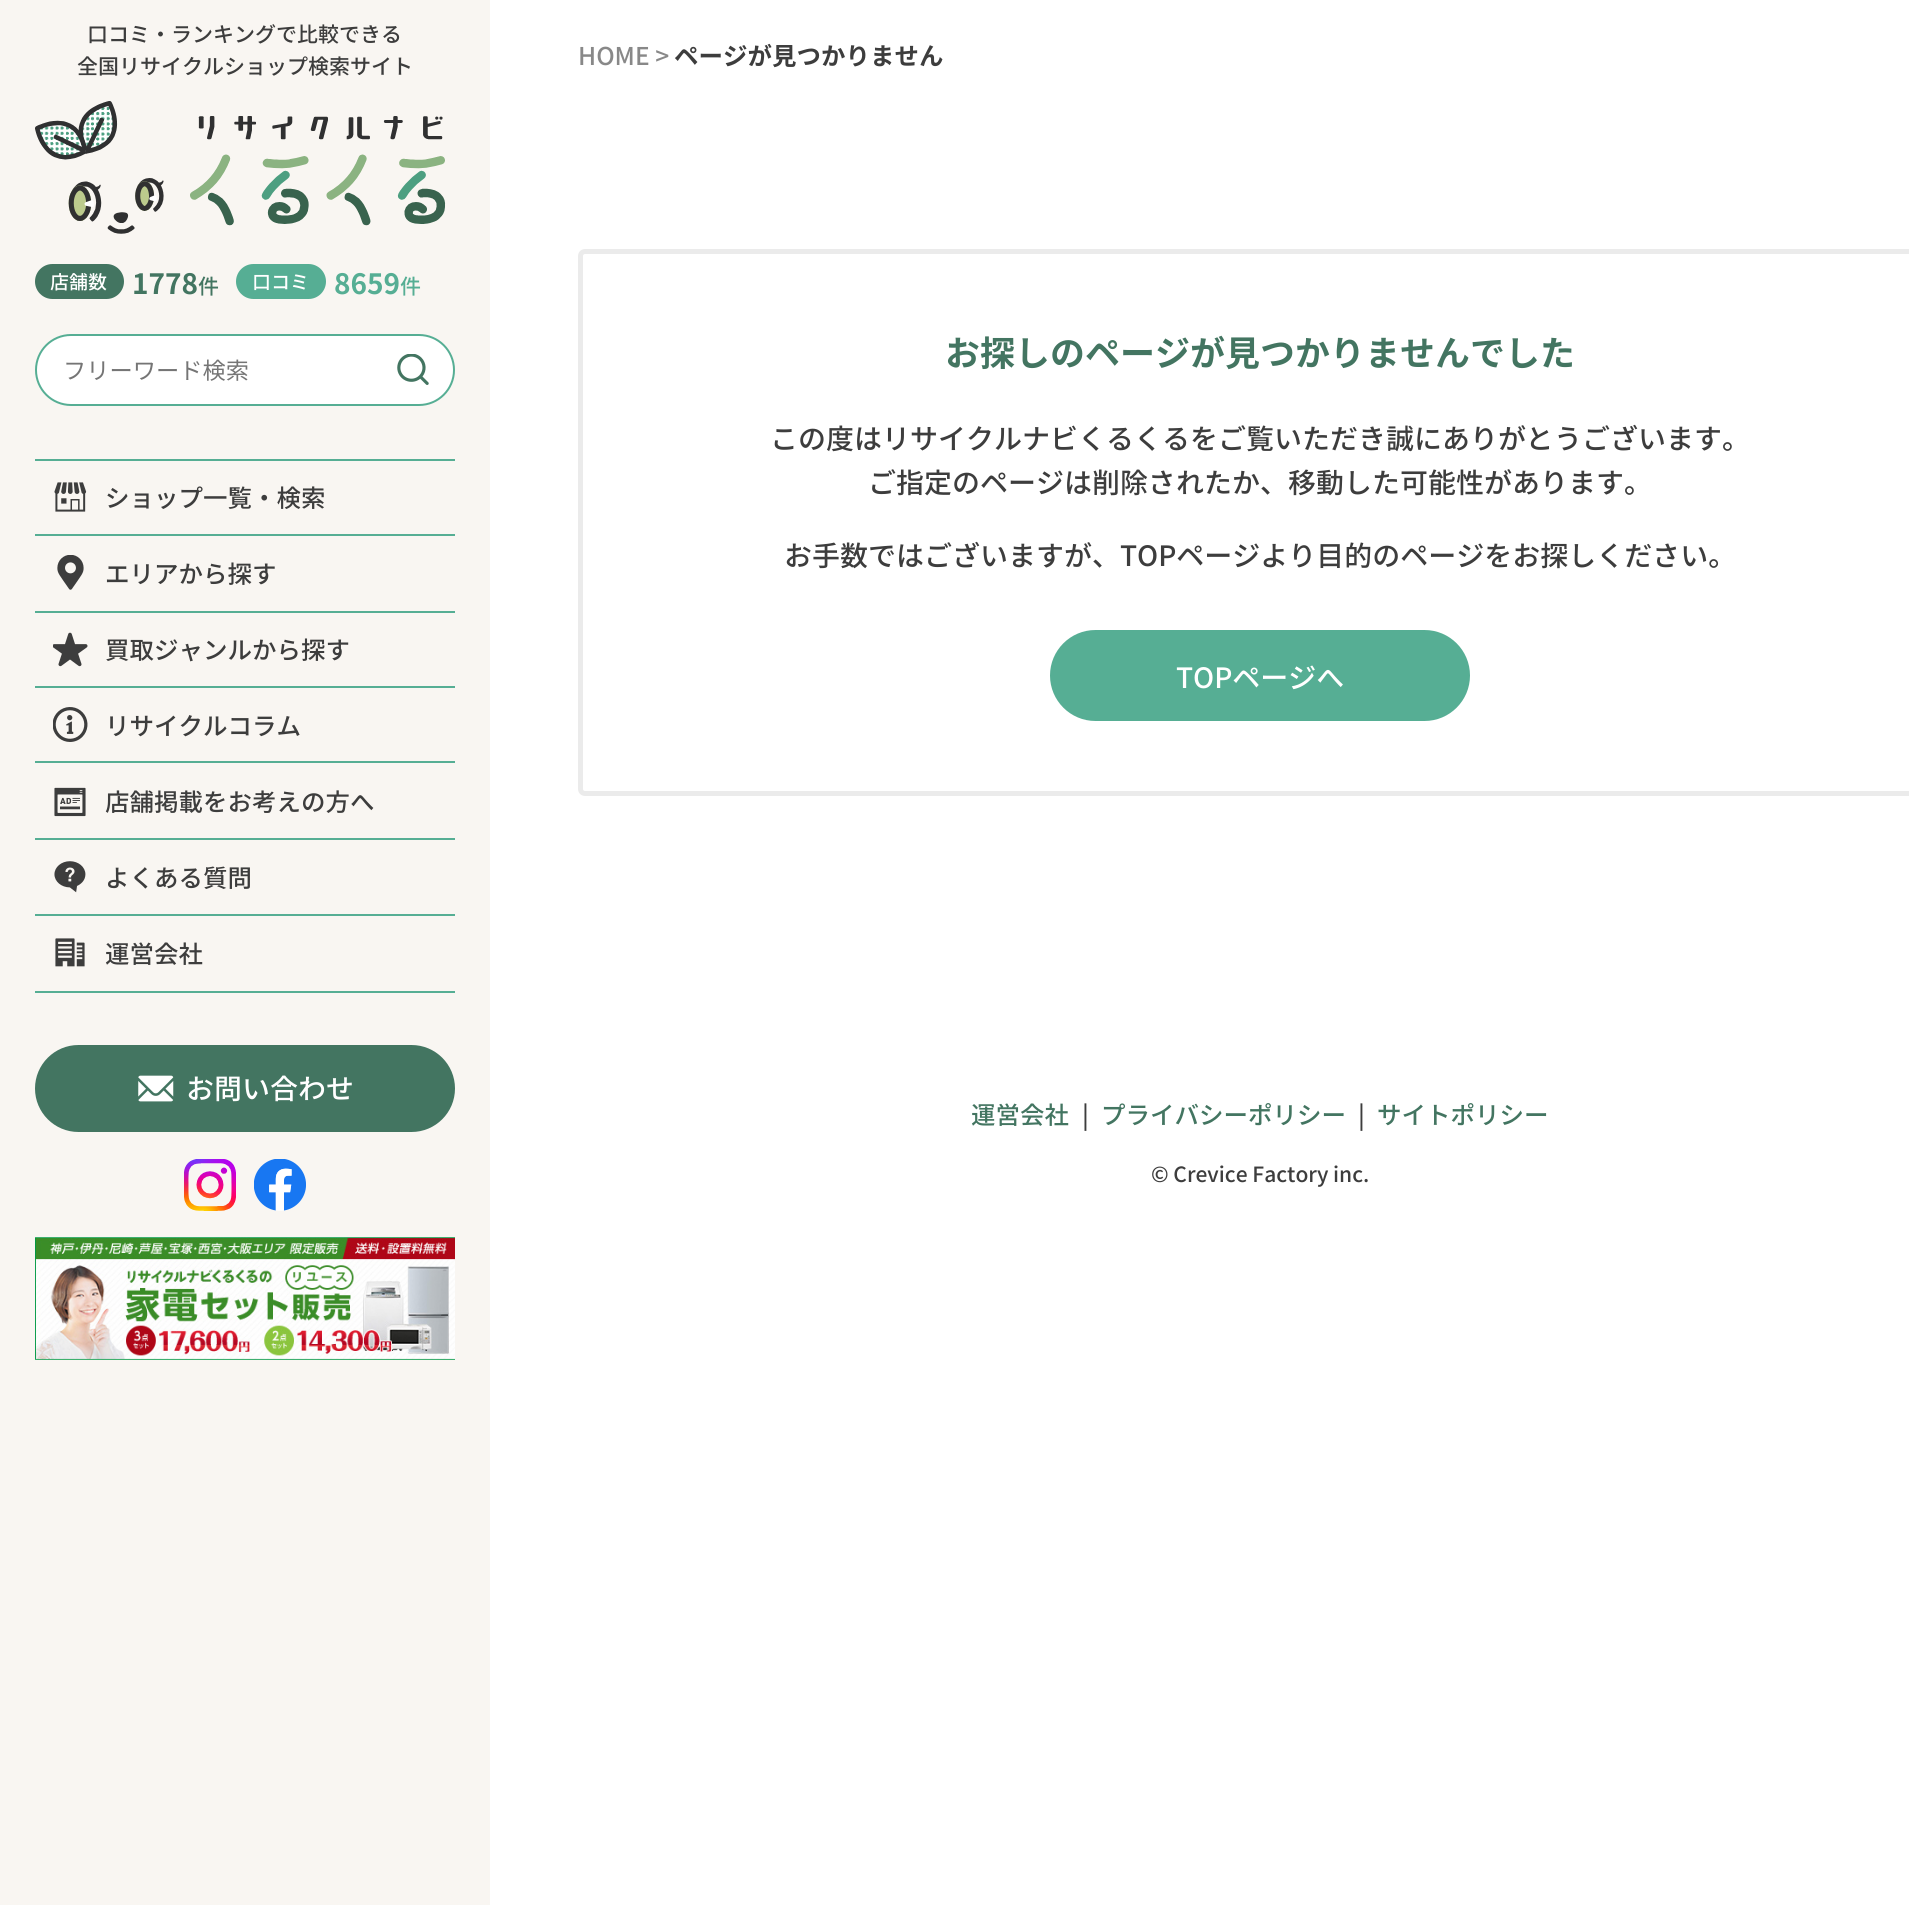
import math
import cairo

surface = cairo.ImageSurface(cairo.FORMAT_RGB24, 1909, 1905)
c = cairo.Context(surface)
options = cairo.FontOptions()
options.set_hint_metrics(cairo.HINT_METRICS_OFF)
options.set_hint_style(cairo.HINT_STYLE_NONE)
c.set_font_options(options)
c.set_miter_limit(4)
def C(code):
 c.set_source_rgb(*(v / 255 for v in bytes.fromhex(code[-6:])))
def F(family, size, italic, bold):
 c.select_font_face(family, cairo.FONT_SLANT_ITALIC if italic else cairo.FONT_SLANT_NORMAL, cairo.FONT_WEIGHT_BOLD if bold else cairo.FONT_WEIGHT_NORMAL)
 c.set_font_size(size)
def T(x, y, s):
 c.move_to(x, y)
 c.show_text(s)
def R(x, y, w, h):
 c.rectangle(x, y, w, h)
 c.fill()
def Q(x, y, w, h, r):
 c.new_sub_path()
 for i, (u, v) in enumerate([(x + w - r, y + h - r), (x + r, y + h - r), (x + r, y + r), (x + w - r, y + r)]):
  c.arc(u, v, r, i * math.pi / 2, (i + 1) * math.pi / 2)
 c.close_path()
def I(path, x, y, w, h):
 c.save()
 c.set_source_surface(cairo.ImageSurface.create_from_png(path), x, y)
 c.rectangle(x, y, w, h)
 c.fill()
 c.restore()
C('ffffff')
c.paint()
C('f9f6f2')
R(0,0,490,1905)
F('Noto Sans CJK JP Medium',21,0,0)
C('3d3d3d')
T(87,42,'口コミ・ランキングで比較できる')
T(77,74,'全国リサイクルショップ検索サイト')
I('1.png',35,101,411,133)
C('437561')
Q(35,264,89,35,17.5)
c.fill()
F('Noto Sans CJK JP Medium',19,0,0)
C('ffffff')
T(50,289,'店舗数')
F('Noto Sans CJK JP',28,0,1)
C('437561')
T(132,294,'1778')
F('Noto Sans CJK JP Medium',21,0,0)
T(198,294,'件')
C('56ae94')
Q(236,264,90,35,17.5)
c.fill()
F('Noto Sans CJK JP Medium',19,0,0)
C('ffffff')
T(252,289,'口コミ')
F('Noto Sans CJK JP',28,0,1)
C('56ae94')
T(334,294,'8659')
F('Noto Sans CJK JP Medium',21,0,0)
T(400,294,'件')
C('ffffff')
Q(36,335,418,70,35)
c.fill_preserve()
C('56ae94')
c.stroke()
F('Noto Sans CJK JP',23.25,0,0)
C('757575')
T(63,379,'フリーワード検索')
I('2.png',397,354,32,31)
C('56ae94')
R(35,459,420,2)
I('3.png',54,482,33,30)
F('Noto Sans CJK JP Medium',24.5,0,0)
C('3d3d3d')
T(105,507,'ショップ一覧・検索')
C('56ae94')
R(35,534,420,2)
I('4.png',57,555,27,35)
C('3d3d3d')
T(105,583,'エリアから探す')
C('56ae94')
R(35,611,420,2)
I('5.png',53,632,35,35)
C('3d3d3d')
T(105,659,'買取ジャンルから探す')
C('56ae94')
R(35,686,420,2)
I('6.png',53,707,35,35)
C('3d3d3d')
T(105,735,'リサイクルコラム')
C('56ae94')
R(35,761,420,2)
I('7.png',54,787,32,30)
C('3d3d3d')
T(105,811,'店舗掲載をお考えの方へ')
C('56ae94')
R(35,838,420,2)
I('8.png',54,861,32,32)
C('3d3d3d')
T(105,887,'よくある質問')
C('56ae94')
R(35,914,420,2)
R(35,991,420,2)
I('9.png',55,938,30,29)
C('3d3d3d')
T(105,963,'運営会社')
C('437561')
Q(35,1045,420,87,43.5)
c.fill()
I('10.png',138,1075,36,27)
F('Noto Sans CJK JP Medium',28,0,0)
C('ffffff')
T(186,1099,'お問い合わせ')
I('11.png',184,1159,52,52)
I('12.png',254,1159,52,52)
I('13.png',35,1237,420,123)
F('Noto Sans CJK JP Medium',24.5,0,0)
C('888888')
T(578,65,'HOME >')
F('Noto Sans CJK JP',24.5,0,1)
C('3d3d3d')
T(674,65,'ページが見つかりません')
Q(580.5,251.5,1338,542,4.5)
C('ebebeb')
c.set_line_width(5)
c.stroke()
F('Noto Sans CJK JP',35,0,1)
C('437561')
T(945,366,'お探しのページが見つかりませんでした')
F('Noto Sans CJK JP Medium',28,0,0)
C('3d3d3d')
T(770,449,'この度はリサイクルナビくるくるをご覧いただき誠にありがとうございます。')
T(868,493,'ご指定のページは削除されたか、移動した可能性があります。')
T(784,566,'お手数ではございますが、TOPページより目的のページをお探しください。')
C('56ae94')
Q(1051,631,418,89,44.5)
c.fill_preserve()
c.set_line_width(2)
c.stroke()
C('ffffff')
T(1176,688,'TOPページへ')
F('Noto Sans CJK JP Medium',24.5,0,0)
C('437561')
T(971,1124,'運営会社')
C('3d3d3d')
T(1082,1124,'|')
C('437561')
T(1101,1124,'プライバシーポリシー')
C('3d3d3d')
T(1358,1124,'|')
C('437561')
T(1377,1124,'サイトポリシー')
F('Noto Sans CJK JP Medium',21,0,0)
C('3d3d3d')
T(1151,1182,'© Crevice Factory inc.')
surface.write_to_png('o.png')
